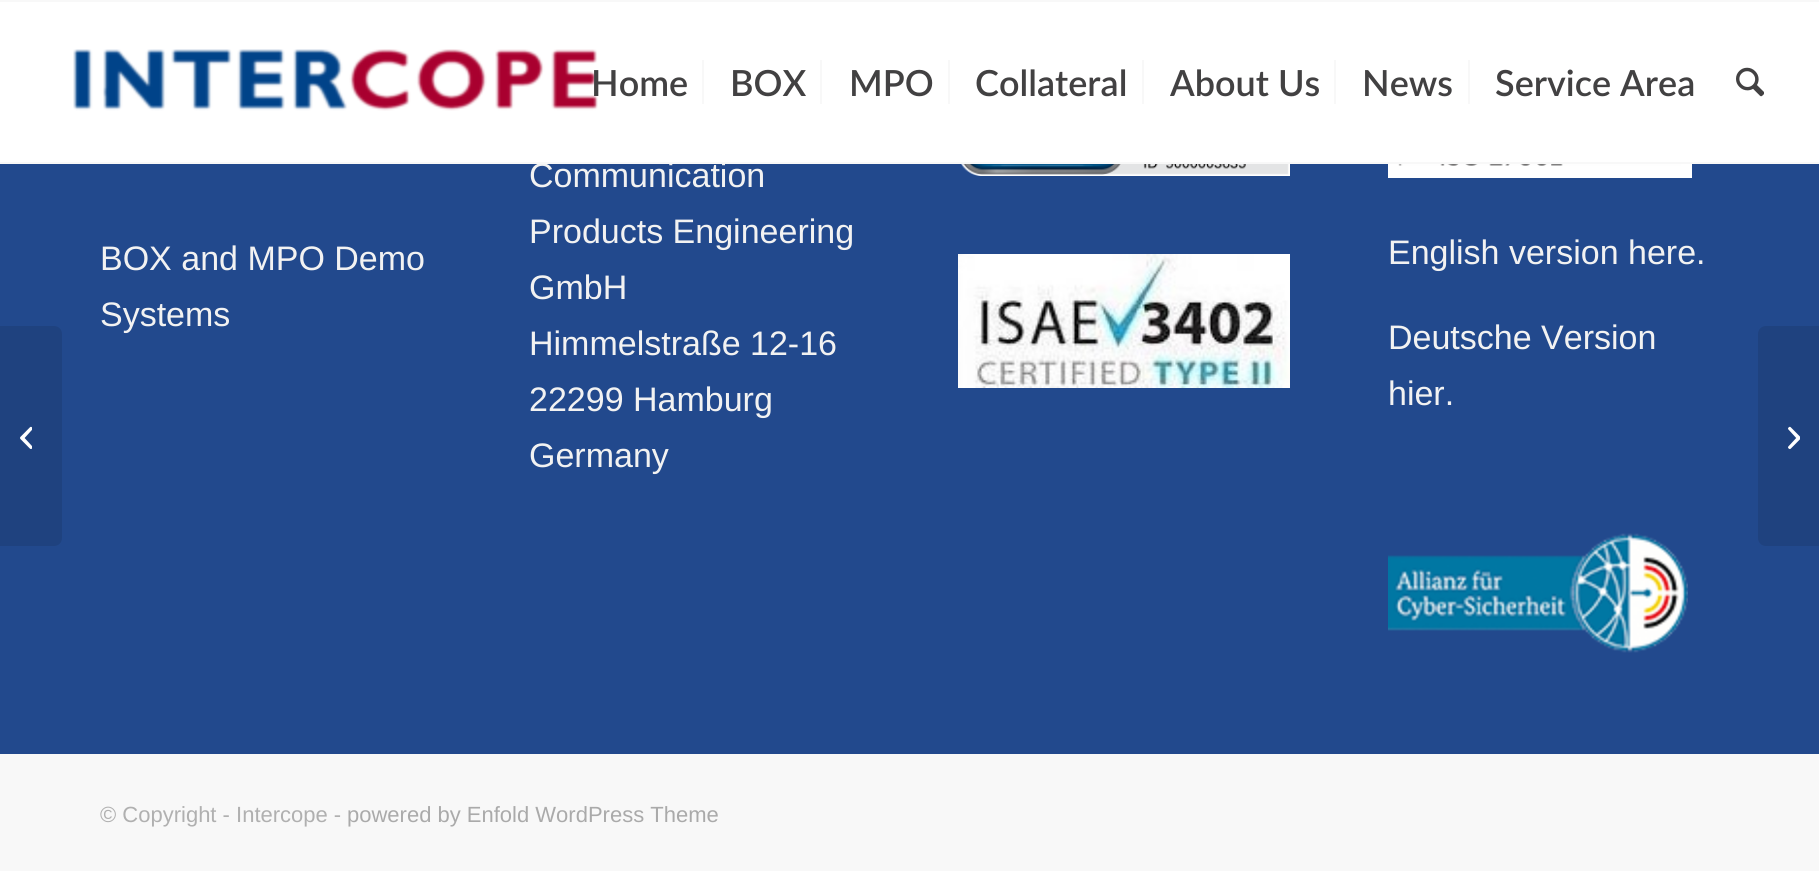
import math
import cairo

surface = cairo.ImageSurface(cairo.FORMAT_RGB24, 1819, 871)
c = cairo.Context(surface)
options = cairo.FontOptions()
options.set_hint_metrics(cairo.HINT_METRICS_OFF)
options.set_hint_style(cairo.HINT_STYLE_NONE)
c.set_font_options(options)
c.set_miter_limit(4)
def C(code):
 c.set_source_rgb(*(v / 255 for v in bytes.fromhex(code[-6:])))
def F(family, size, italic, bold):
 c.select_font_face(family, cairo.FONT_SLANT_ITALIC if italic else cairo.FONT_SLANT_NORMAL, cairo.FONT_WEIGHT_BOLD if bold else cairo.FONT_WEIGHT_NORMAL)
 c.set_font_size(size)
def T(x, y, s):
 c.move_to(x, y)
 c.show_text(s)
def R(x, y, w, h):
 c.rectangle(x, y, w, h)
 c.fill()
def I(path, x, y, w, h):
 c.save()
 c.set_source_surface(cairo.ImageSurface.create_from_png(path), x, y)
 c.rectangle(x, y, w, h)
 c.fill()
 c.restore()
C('22498d')
c.paint()
C('ffffff')
R(0,2,1819,160)
C('f8f8f8')
R(0,0,1819,2)
F('Liberation Sans',34,0,0)
C('f2f2f2')
T(529,187,'Communication')
C('f8f8f8')
R(0,162,1819,2)
I('1.png',73,49,525,62)
F('Lato SemiBold',36,0,0)
C('424142')
T(591,96,'Home')
T(730,96,'BOX')
C('f8f8f8')
R(702,60,2,44)
C('424142')
T(849,96,'MPO')
C('f8f8f8')
R(820,60,2,44)
C('424142')
T(975,96,'Collateral')
C('f8f8f8')
R(948,60,2,44)
C('424142')
T(1170,96,'About Us')
C('f8f8f8')
R(1142,60,2,44)
C('424142')
T(1362,96,'News')
C('f8f8f8')
R(1334,60,2,44)
C('424142')
T(1495,96,'Service Area')
C('f8f8f8')
R(1468,60,2,44)
I('2.png',1736,67,28,30)
C('1f427f')
c.new_path()
c.move_to(0,326)
c.line_to(54,326)
c.curve_to(58.5,326,62,329.5,62,334)
c.line_to(62,538)
c.curve_to(62,542.5,58.5,546,54,546)
c.line_to(0,546)
c.close_path()
c.fill()
I('3.png',20,426,12,23)
F('Liberation Sans',34,0,0)
C('f2f2f2')
T(100,270,'BOX and MPO Demo')
T(100,326,'Systems')
T(529,243,'Products Engineering')
T(529,299,'GmbH')
T(529,355,'Himmelstraße 12-16')
T(529,411,'22299 Hamburg')
T(529,467,'Germany')
I('4.png',961,164,329,12)
I('5.png',958,254,332,134)
I('6.png',1388,164,304,14)
T(1388,264,'English version here.')
T(1388,349,'Deutsche Version')
T(1388,405,'hier.')
I('7.png',1388,533,300,120)
C('f8f8f8')
R(0,754,1819,117)
F('Liberation Sans',22,0,0)
C('b0b0b0')
T(100,822,'© Copyright - Intercope -')
C('aaaaaa')
T(347,822,'powered by Enfold WordPress Theme')
C('1f427f')
c.new_path()
c.move_to(1766,326)
c.line_to(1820,326)
c.line_to(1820,546)
c.line_to(1766,546)
c.curve_to(1761.5,546,1758,542.5,1758,538)
c.line_to(1758,334)
c.curve_to(1758,329.5,1761.5,326,1766,326)
c.close_path()
c.fill()
I('8.png',1788,426,12,24)
surface.write_to_png('o.png')
